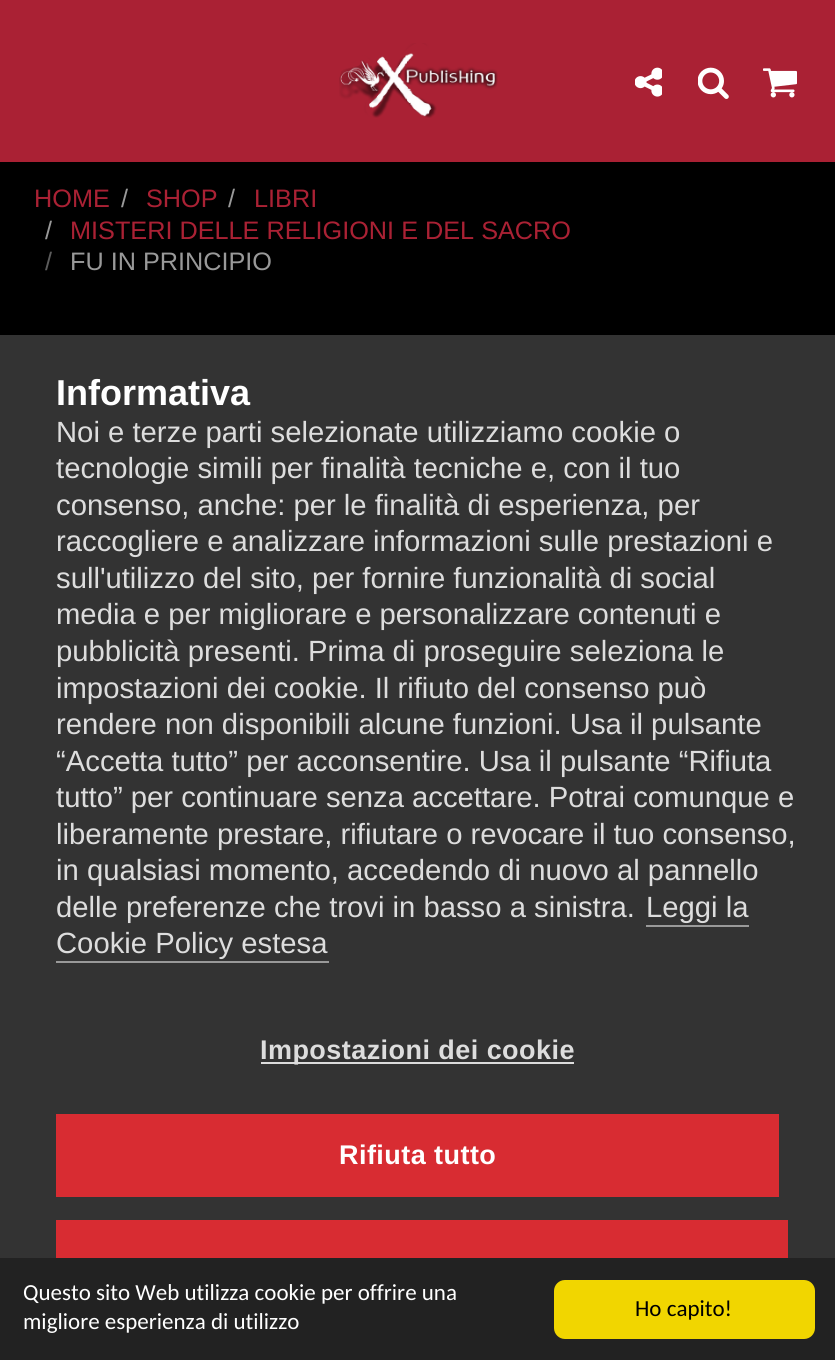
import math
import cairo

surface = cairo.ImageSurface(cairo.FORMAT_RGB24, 835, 1360)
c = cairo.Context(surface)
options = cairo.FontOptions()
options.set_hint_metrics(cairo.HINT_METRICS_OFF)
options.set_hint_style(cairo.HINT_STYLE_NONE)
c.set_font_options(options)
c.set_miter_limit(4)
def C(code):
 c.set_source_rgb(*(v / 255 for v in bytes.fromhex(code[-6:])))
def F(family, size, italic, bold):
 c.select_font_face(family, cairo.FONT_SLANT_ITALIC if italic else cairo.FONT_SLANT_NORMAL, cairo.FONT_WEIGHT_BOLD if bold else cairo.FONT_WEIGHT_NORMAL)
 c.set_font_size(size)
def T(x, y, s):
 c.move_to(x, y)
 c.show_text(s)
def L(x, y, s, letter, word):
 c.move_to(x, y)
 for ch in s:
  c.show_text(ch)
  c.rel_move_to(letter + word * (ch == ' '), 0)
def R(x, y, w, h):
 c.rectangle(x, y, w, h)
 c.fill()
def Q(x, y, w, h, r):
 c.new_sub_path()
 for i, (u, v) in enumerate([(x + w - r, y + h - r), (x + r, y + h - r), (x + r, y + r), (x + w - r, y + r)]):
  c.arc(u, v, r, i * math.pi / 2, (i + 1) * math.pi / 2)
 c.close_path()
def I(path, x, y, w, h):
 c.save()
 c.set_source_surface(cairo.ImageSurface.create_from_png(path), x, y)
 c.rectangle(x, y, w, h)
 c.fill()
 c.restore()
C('000000')
c.paint()
C('aa2134')
R(0,0,835,162)
I('1.png',339,43,159,75)
I('2.png',635,67,27,30)
I('3.png',698,67,31,32)
I('4.png',763,68,34,30)
F('Liberation Sans',25.25,0,0)
T(34,207,'HOME')
C('999999')
T(121,207,'/')
C('aa2134')
T(146,207,'SHOP')
C('999999')
T(228,207,'/')
C('aa2134')
T(254,207,'LIBRI')
C('999999')
T(45,239,'/')
C('aa2134')
T(70,239,'MISTERI DELLE RELIGIONI E DEL SACRO')
C('5c5c5c')
T(45,270,'/')
C('999999')
T(70,270,'FU IN PRINCIPIO')
C('333333')
R(0,335,835,923)
F('Liberation Sans',36,0,1)
C('ffffff')
T(56,405,'Informativa')
F('Liberation Sans',29.25,0,0)
C('dddddd')
T(56,442,'Noi e terze parti selezionate utilizziamo cookie o')
T(56,478,'tecnologie simili per finalità tecniche e, con il tuo')
T(56,515,'consenso, anche: per le finalità di esperienza, per')
T(56,551,'raccogliere e analizzare informazioni sulle prestazioni e')
T(56,588,'sull\'utilizzo del sito, per fornire funzionalità di social')
T(56,624,'media e per migliorare e personalizzare contenuti e')
T(56,661,'pubblicità presenti. Prima di proseguire seleziona le')
T(56,698,'impostazioni dei cookie. Il rifiuto del consenso può')
T(56,734,'rendere non disponibili alcune funzioni. Usa il pulsante')
T(56,771,'“Accetta tutto” per acconsentire. Usa il pulsante “Rifiuta')
T(56,807,'tutto” per continuare senza accettare. Potrai comunque e')
T(56,844,'liberamente prestare, rifiutare o revocare il tuo consenso,')
T(56,880,'in qualsiasi momento, accedendo di nuovo al pannello')
T(56,917,'delle preferenze che trovi in basso a sinistra.')
T(646,917,'Leggi la')
C('999999')
R(646,925,103,2)
C('dddddd')
T(56,953,'Cookie Policy estesa')
C('999999')
R(56,961,273,2)
C('dddddd')
R(261,1062,313,2)
F('Liberation Sans',27,0,1)
L(260,1059,'Impostazioni dei cookie',.45,0)
C('d82c32')
R(56,1114,723,83)
C('ffffff')
L(339,1164,'Rifiuta tutto',.45,0)
C('d82c32')
R(56,1220,732,38)
C('222222')
R(0,1258,835,102)
F('Carlito',23,0,0)
C('ffffff')
T(23,1300,'Questo sito Web utilizza cookie per offrire una')
T(23,1329,'migliore esperienza di utilizzo')
C('f1d600')
Q(554,1280,261,59,11)
c.fill()
C('000000')
T(635,1316,'Ho capito!')
surface.write_to_png('o.png')
